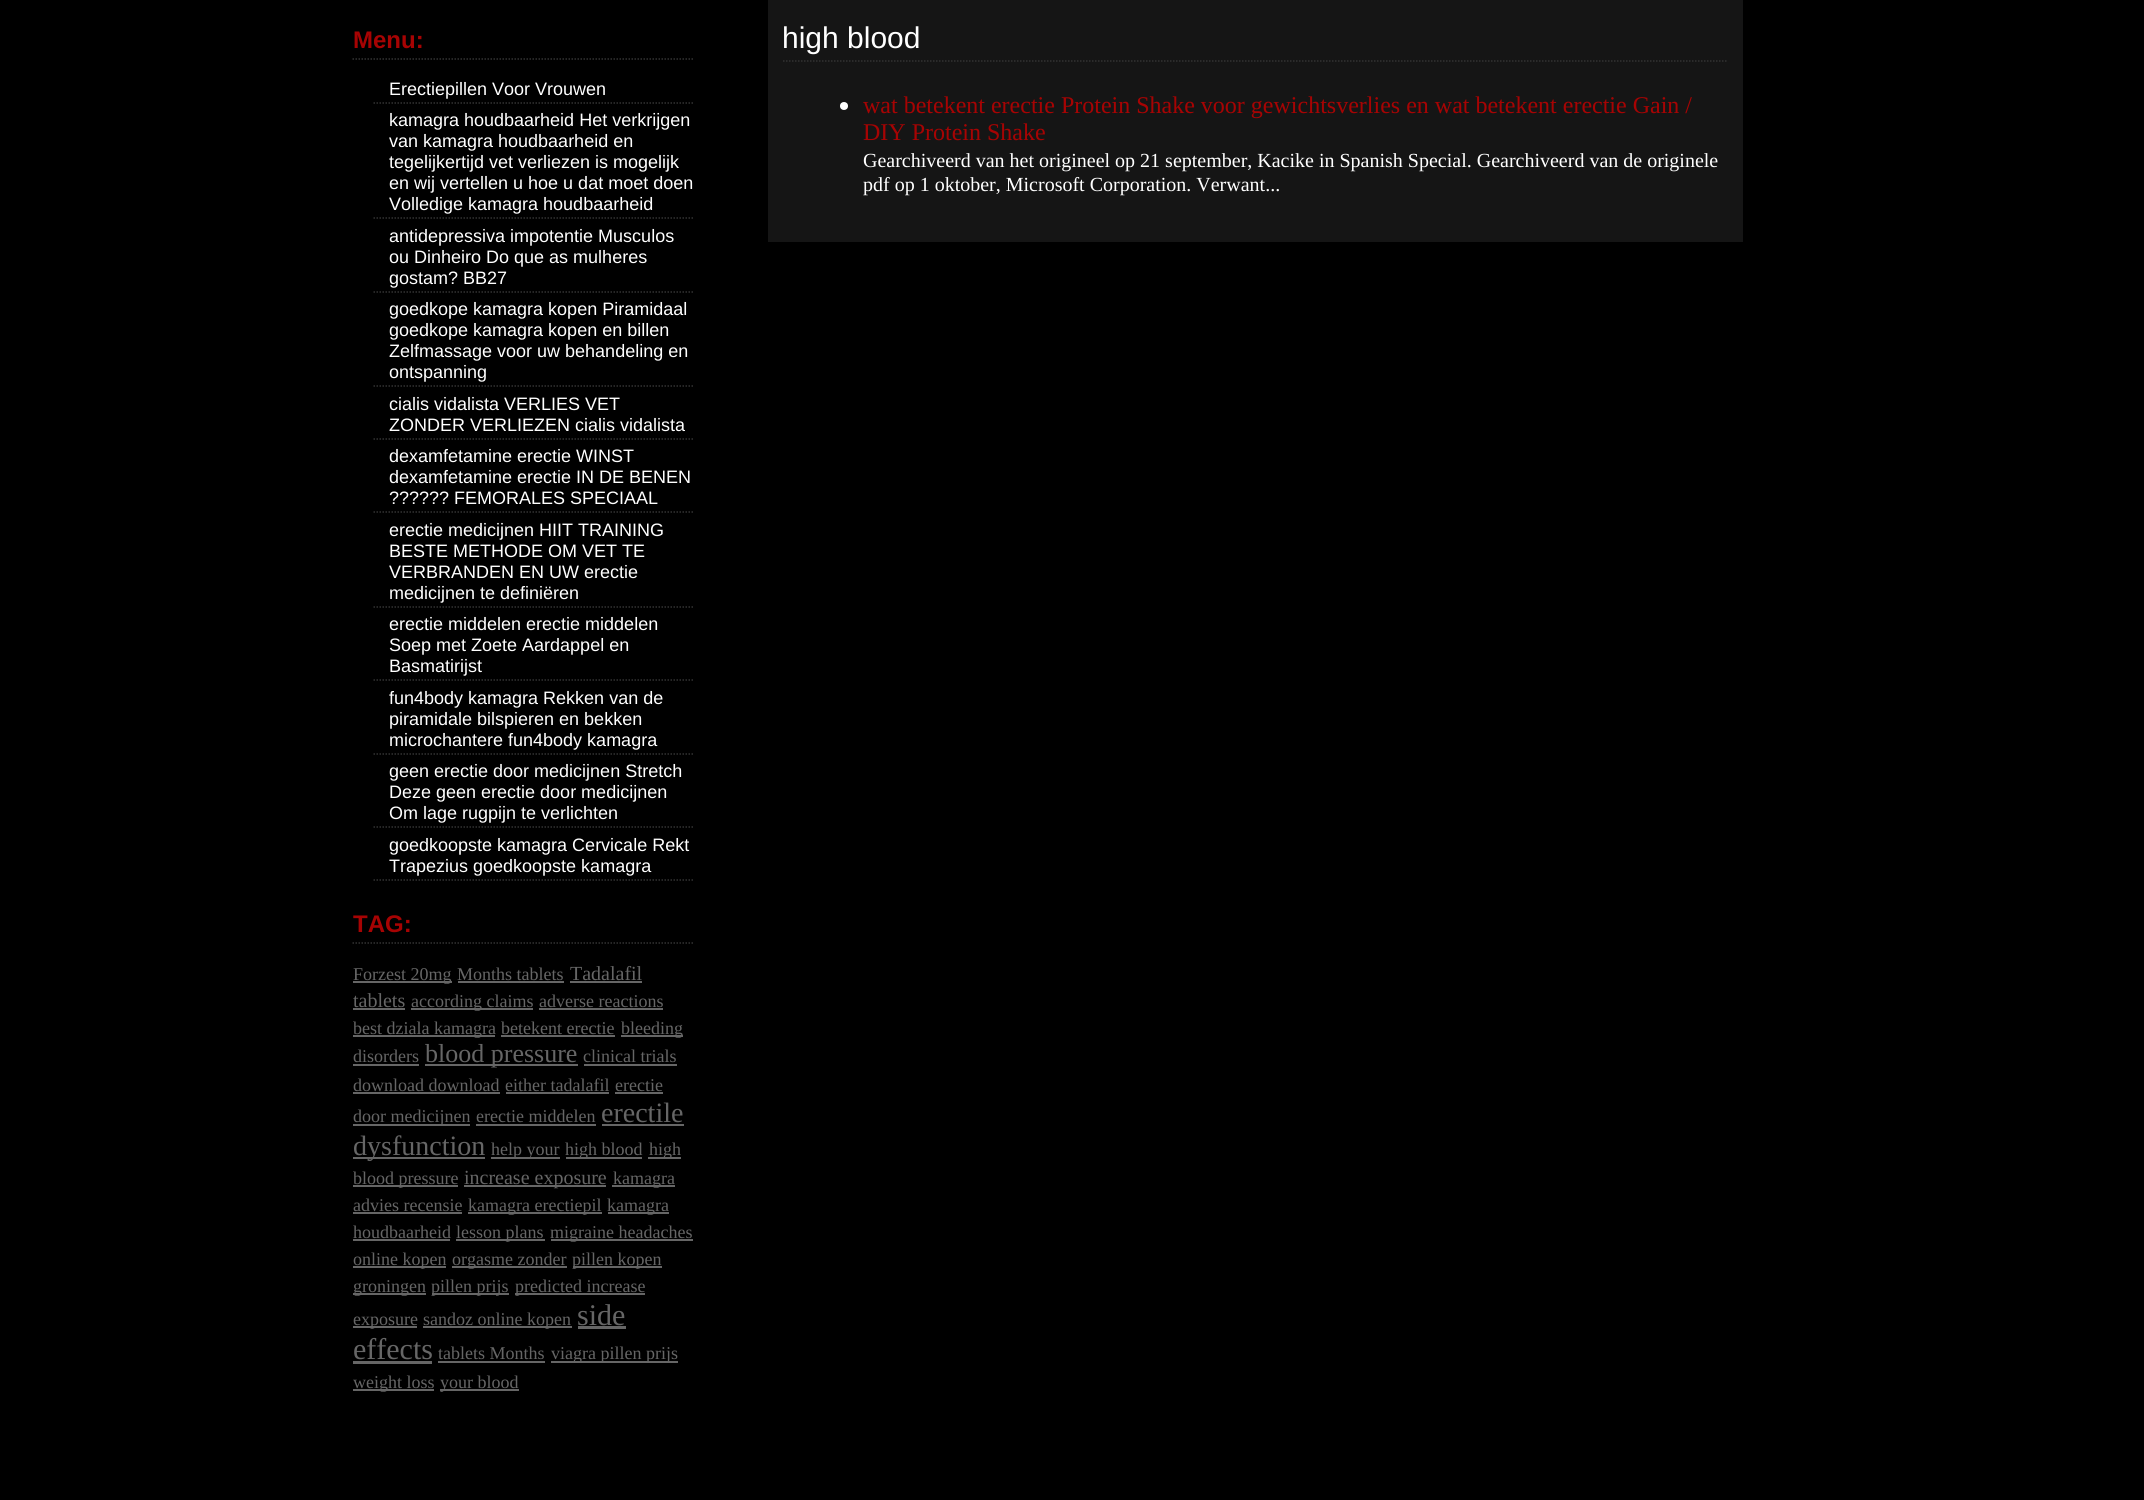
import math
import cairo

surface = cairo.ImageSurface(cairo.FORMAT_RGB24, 2144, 1500)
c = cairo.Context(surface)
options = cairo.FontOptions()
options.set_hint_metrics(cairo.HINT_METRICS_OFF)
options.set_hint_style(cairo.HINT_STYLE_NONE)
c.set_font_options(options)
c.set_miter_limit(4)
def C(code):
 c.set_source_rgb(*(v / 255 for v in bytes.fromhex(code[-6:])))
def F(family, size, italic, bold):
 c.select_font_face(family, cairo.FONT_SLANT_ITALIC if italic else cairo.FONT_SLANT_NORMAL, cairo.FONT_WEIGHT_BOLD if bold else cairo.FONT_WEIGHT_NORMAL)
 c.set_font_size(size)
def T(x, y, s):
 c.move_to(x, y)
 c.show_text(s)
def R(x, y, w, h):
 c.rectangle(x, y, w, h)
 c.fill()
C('000000')
c.paint()
c.new_path()
c.move_to(352.5,59)
c.line_to(694.5,59)
C('333333')
c.set_line_width(1.5)
c.set_dash([1.5,1.5])
c.stroke()
F('Liberation Sans',24,0,1)
C('a70303')
T(353,48,'Menu:')
c.new_path()
c.move_to(373.5,103)
c.line_to(694.5,103)
C('333333')
c.stroke()
F('Liberation Sans',18,0,0)
C('ffffff')
T(389,95,'Erectiepillen Voor Vrouwen')
c.new_path()
c.move_to(373.5,218)
c.line_to(694.5,218)
C('333333')
c.stroke()
C('ffffff')
T(389,126,'kamagra houdbaarheid Het verkrijgen')
T(389,147,'van kamagra houdbaarheid en')
T(389,168,'tegelijkertijd vet verliezen is mogelijk')
T(389,189,'en wij vertellen u hoe u dat moet doen')
T(389,210,'Volledige kamagra houdbaarheid')
c.new_path()
c.move_to(373.5,292)
c.line_to(694.5,292)
C('333333')
c.stroke()
C('ffffff')
T(389,242,'antidepressiva impotentie Musculos')
T(389,263,'ou Dinheiro Do que as mulheres')
T(389,284,'gostam? BB27')
c.new_path()
c.move_to(373.5,386)
c.line_to(694.5,386)
C('333333')
c.stroke()
C('ffffff')
T(389,315,'goedkope kamagra kopen Piramidaal')
T(389,336,'goedkope kamagra kopen en billen')
T(389,357,'Zelfmassage voor uw behandeling en')
T(389,378,'ontspanning')
c.new_path()
c.move_to(373.5,439)
c.line_to(694.5,439)
C('333333')
c.stroke()
C('ffffff')
T(389,410,'cialis vidalista VERLIES VET')
T(389,431,'ZONDER VERLIEZEN cialis vidalista')
c.new_path()
c.move_to(373.5,512)
c.line_to(694.5,512)
C('333333')
c.stroke()
C('ffffff')
T(389,462,'dexamfetamine erectie WINST')
T(389,483,'dexamfetamine erectie IN DE BENEN')
T(389,504,'?????? FEMORALES SPECIAAL')
c.new_path()
c.move_to(373.5,607)
c.line_to(694.5,607)
C('333333')
c.stroke()
C('ffffff')
T(389,536,'erectie medicijnen HIIT TRAINING')
T(389,557,'BESTE METHODE OM VET TE')
T(389,578,'VERBRANDEN EN UW erectie')
T(389,599,'medicijnen te definiëren')
c.new_path()
c.move_to(373.5,680)
c.line_to(694.5,680)
C('333333')
c.stroke()
C('ffffff')
T(389,630,'erectie middelen erectie middelen')
T(389,651,'Soep met Zoete Aardappel en')
T(389,672,'Basmatirijst')
c.new_path()
c.move_to(373.5,754)
c.line_to(694.5,754)
C('333333')
c.stroke()
C('ffffff')
T(389,704,'fun4body kamagra Rekken van de')
T(389,725,'piramidale bilspieren en bekken')
T(389,746,'microchantere fun4body kamagra')
c.new_path()
c.move_to(373.5,827)
c.line_to(694.5,827)
C('333333')
c.stroke()
C('ffffff')
T(389,777,'geen erectie door medicijnen Stretch')
T(389,798,'Deze geen erectie door medicijnen')
T(389,819,'Om lage rugpijn te verlichten')
c.new_path()
c.move_to(373.5,880)
c.line_to(694.5,880)
C('333333')
c.stroke()
C('ffffff')
T(389,851,'goedkoopste kamagra Cervicale Rekt')
T(389,872,'Trapezius goedkoopste kamagra')
c.new_path()
c.move_to(352.5,943)
c.line_to(694.5,943)
C('333333')
c.stroke()
F('Liberation Sans',24,0,1)
C('a70303')
T(353,932,'TAG:')
C('666666')
R(353,981,99,2)
F('Liberation Serif',18,0,0)
T(353,980,'Forzest 20mg')
T(457,980,'Months tablets')
R(458,981,106,2)
F('Liberation Serif',20,0,0)
T(570,980,'Tadalafil')
R(570,981,72,2)
T(353,1007,'tablets')
R(353,1008,52,2)
R(411,1008,122,2)
F('Liberation Serif',18,0,0)
T(411,1007,'according claims')
T(539,1007,'adverse reactions')
R(539,1008,124,2)
R(353,1035,142,2)
T(353,1034,'best dziala kamagra')
T(501,1034,'betekent erectie')
R(501,1035,114,2)
R(621,1035,62,2)
T(621,1034,'bleeding')
T(353,1062,'disorders')
R(353,1064,66,2)
R(425,1064,153,2)
F('Liberation Serif',26,0,0)
T(425,1062,'blood pressure')
F('Liberation Serif',18,0,0)
T(583,1062,'clinical trials')
R(584,1064,93,2)
T(353,1091,'download download')
R(353,1092,147,2)
T(505,1091,'either tadalafil')
R(506,1092,103,2)
T(615,1091,'erectie')
R(615,1092,48,2)
R(353,1124,117,2)
T(353,1122,'door medicijnen')
T(476,1122,'erectie middelen')
R(476,1124,120,2)
F('Liberation Serif',28,0,0)
T(601,1122,'erectile')
R(602,1124,82,2)
R(353,1157,132,2)
T(353,1155,'dysfunction')
R(491,1157,69,2)
F('Liberation Serif',18,0,0)
T(491,1155,'help your')
R(566,1157,76,2)
T(565,1155,'high blood')
R(648,1157,33,2)
T(649,1155,'high')
R(353,1185,105,2)
T(353,1184,'blood pressure')
R(464,1185,142,2)
F('Liberation Serif',20,0,0)
T(464,1184,'increase exposure')
R(612,1185,63,2)
F('Liberation Serif',18,0,0)
T(613,1184,'kamagra')
T(353,1211,'advies recensie')
R(353,1212,109,2)
R(468,1212,134,2)
T(468,1211,'kamagra erectiepil')
R(608,1212,61,2)
T(607,1211,'kamagra')
T(353,1238,'houdbaarheid')
R(353,1239,97,2)
R(456,1239,89,2)
T(456,1238,'lesson plans')
R(551,1239,142,2)
T(550,1238,'migraine headaches')
R(353,1266,93,2)
T(353,1265,'online kopen')
R(452,1266,115,2)
T(452,1265,'orgasme zonder')
R(573,1266,89,2)
T(572,1265,'pillen kopen')
R(353,1293,73,2)
T(353,1292,'groningen')
R(432,1293,77,2)
T(431,1292,'pillen prijs')
R(515,1293,130,2)
T(515,1292,'predicted increase')
R(353,1326,64,2)
T(353,1325,'exposure')
R(423,1326,149,2)
T(423,1325,'sandoz online kopen')
F('Liberation Serif',30,0,0)
T(577,1325,'side')
R(578,1326,48,3)
T(353,1359,'effects')
R(353,1361,79,3)
F('Liberation Serif',18,0,0)
T(438,1359,'tablets Months')
R(438,1361,107,2)
R(551,1361,127,2)
T(551,1359,'viagra pillen prijs')
R(353,1389,81,2)
T(353,1388,'weight loss')
R(440,1389,79,2)
T(440,1388,'your blood')
C('151515')
R(768,0,975,242)
c.new_path()
c.move_to(783,61)
c.line_to(1728,61)
C('333333')
c.stroke()
F('Liberation Sans',30,0,0)
C('ffffff')
T(782,48,'high blood')
c.new_path()
c.arc(844,106,4,0,2 * math.pi)
c.fill()
F('Liberation Serif',24,0,0)
C('a70303')
T(863,113,'wat betekent erectie Protein Shake voor gewichtsverlies en wat betekent erectie Gain /')
T(863,140,'DIY Protein Shake')
F('Liberation Serif',20,0,0)
C('ffffff')
T(863,167,'Gearchiveerd van het origineel op 21 september, Kacike in Spanish Special. Gearchiveerd van de originele')
T(863,191,'pdf op 1 oktober, Microsoft Corporation. Verwant...')
surface.write_to_png('o.png')
